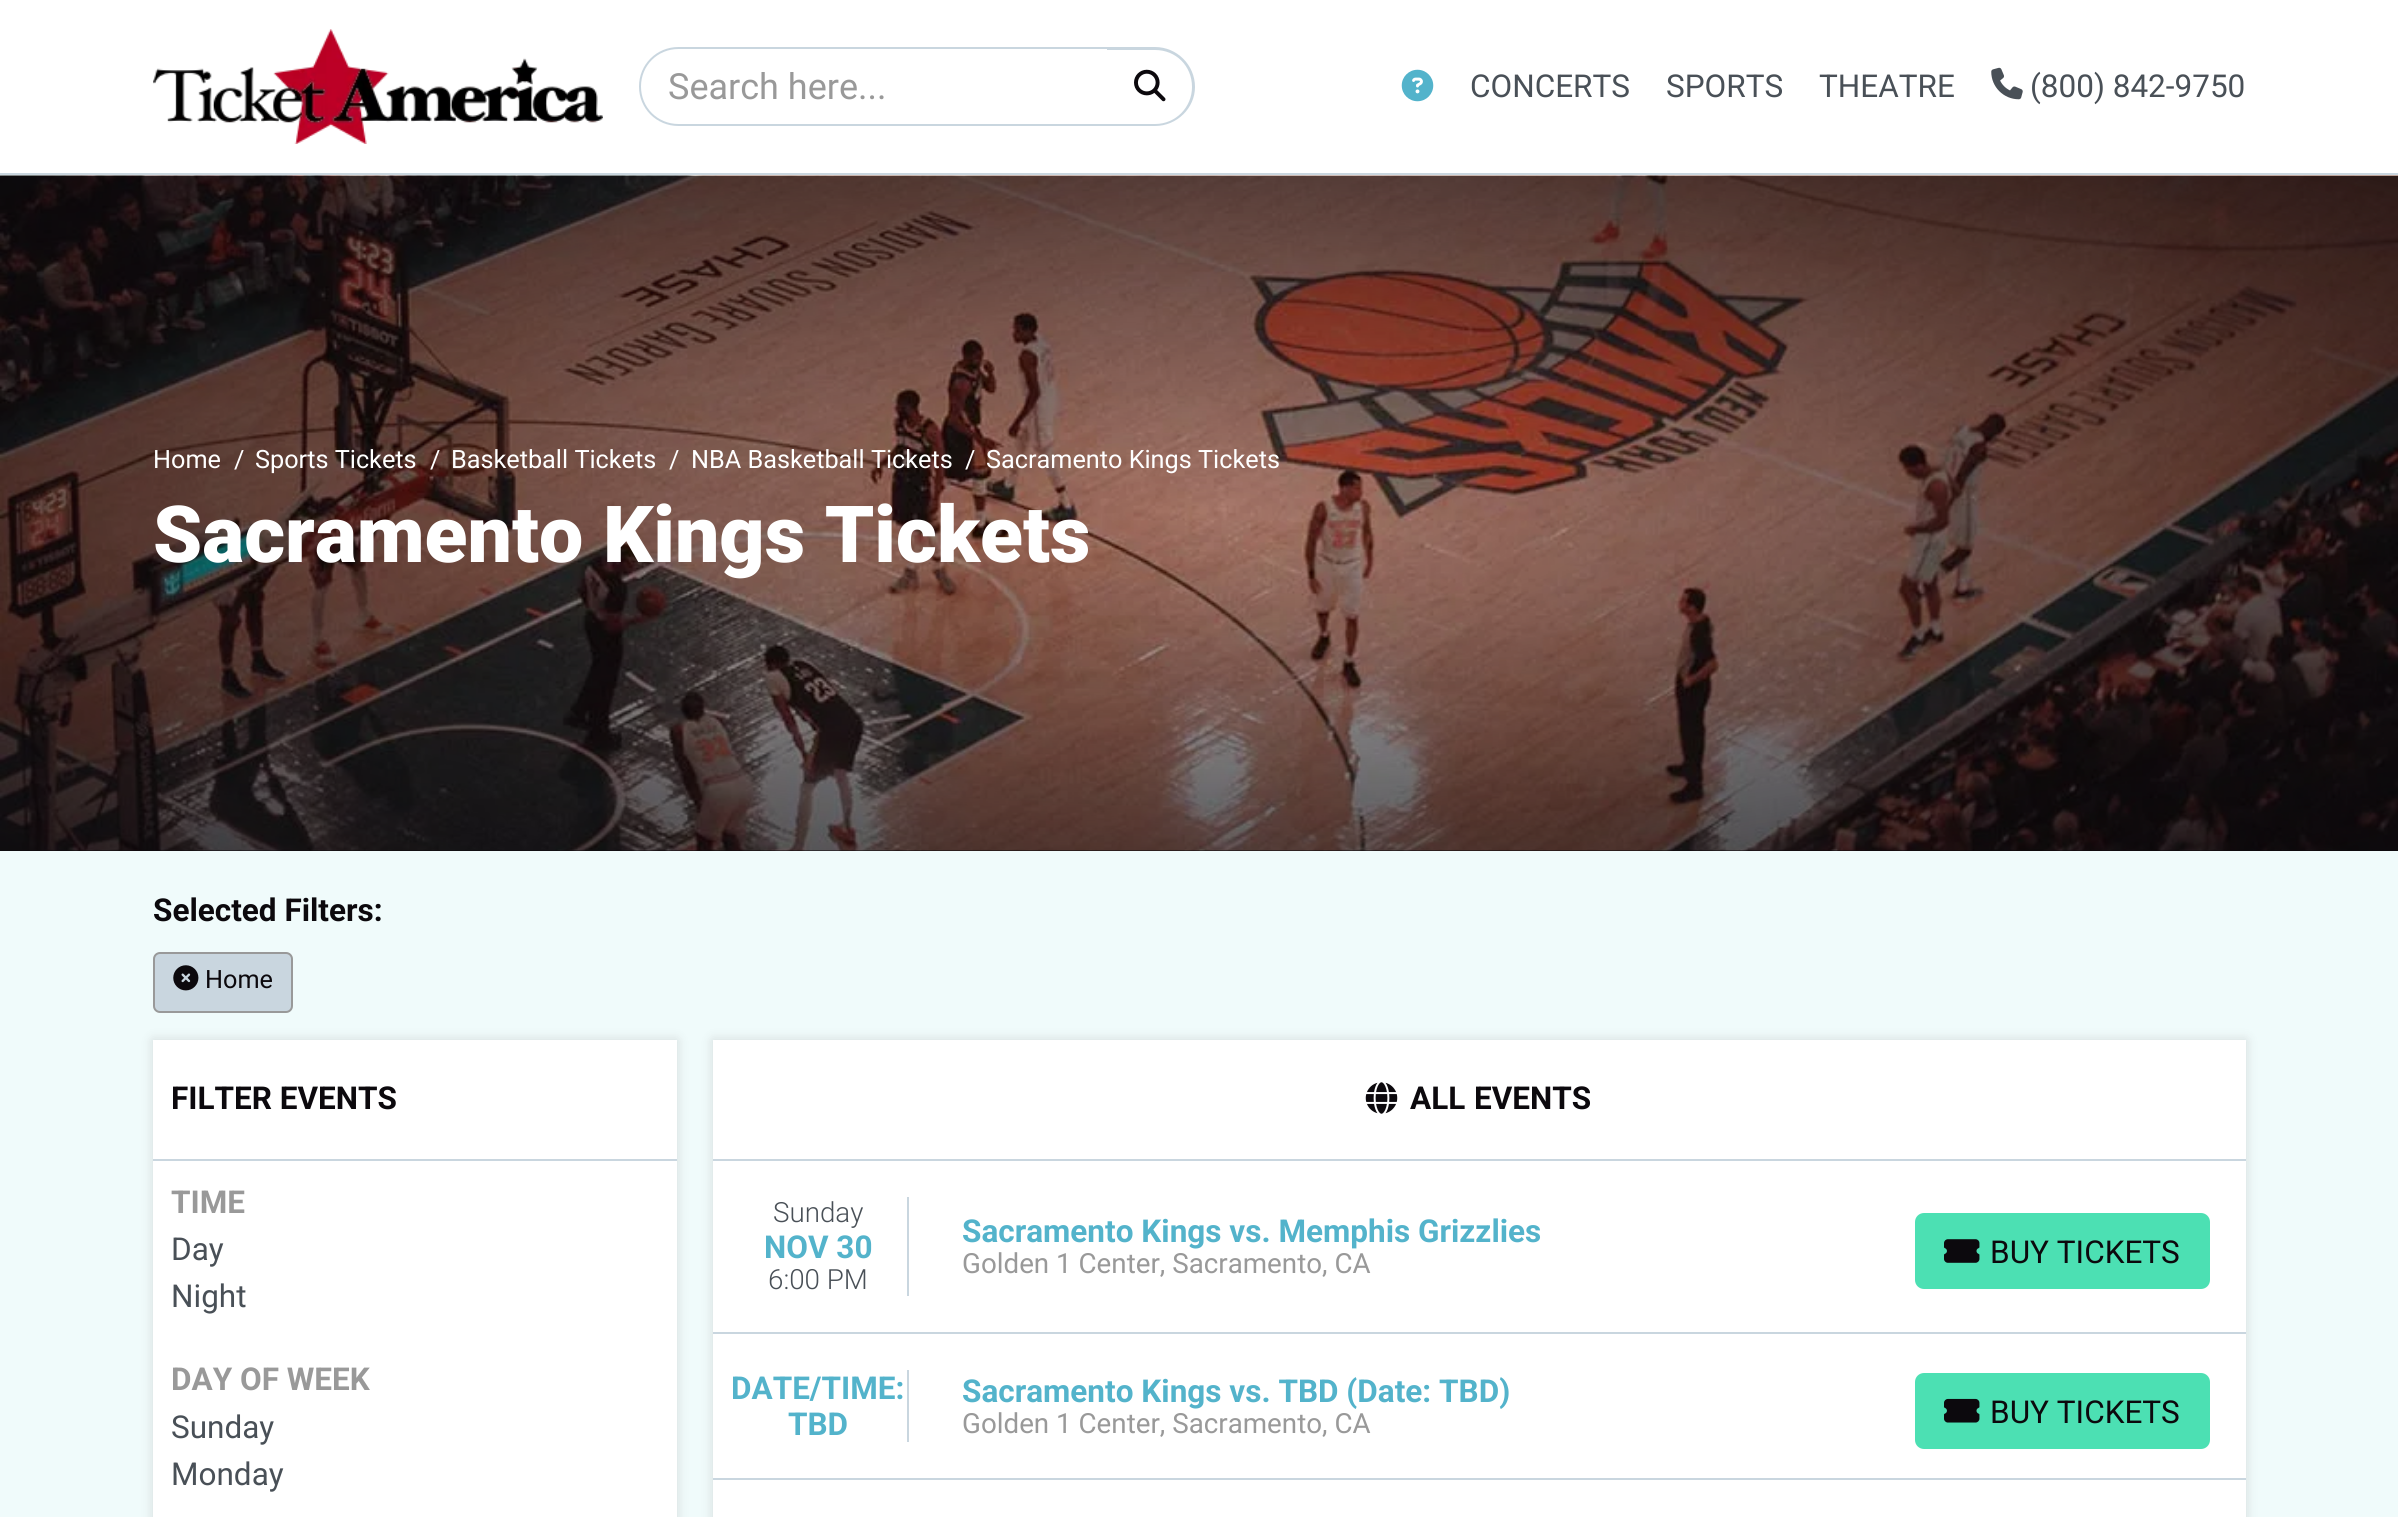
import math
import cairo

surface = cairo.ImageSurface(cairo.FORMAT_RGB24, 2398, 1517)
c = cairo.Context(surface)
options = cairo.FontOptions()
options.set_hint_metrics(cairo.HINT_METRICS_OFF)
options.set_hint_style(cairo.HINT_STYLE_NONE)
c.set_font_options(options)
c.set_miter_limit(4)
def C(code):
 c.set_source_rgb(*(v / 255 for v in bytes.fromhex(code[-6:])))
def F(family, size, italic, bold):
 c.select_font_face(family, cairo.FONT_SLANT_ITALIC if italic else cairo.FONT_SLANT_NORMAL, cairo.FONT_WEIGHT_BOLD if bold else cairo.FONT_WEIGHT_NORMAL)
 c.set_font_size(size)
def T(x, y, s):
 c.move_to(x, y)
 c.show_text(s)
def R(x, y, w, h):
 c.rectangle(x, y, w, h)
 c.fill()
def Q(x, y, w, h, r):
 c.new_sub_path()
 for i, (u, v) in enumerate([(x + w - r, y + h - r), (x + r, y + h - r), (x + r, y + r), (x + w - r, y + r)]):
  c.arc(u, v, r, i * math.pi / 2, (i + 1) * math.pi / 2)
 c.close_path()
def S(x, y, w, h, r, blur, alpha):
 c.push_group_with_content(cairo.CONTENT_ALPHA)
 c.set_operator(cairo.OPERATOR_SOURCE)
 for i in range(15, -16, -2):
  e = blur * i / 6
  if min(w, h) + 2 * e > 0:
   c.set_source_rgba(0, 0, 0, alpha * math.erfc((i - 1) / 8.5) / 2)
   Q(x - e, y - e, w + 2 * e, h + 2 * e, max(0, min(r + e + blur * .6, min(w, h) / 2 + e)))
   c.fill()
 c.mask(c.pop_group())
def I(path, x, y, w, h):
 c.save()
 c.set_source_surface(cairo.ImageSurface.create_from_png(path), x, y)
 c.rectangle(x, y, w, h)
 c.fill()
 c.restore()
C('f0fbfb')
c.paint()
C('ffffff')
R(0,0,2398,173)
C('c9d6df')
R(0,173,2398,2)
I('1.png',153,29,450,115)
c.new_path()
c.move_to(678.5,48)
c.line_to(1108,48)
c.line_to(1108,125)
c.line_to(678.5,125)
c.curve_to(657,125,640,108,640,86.5)
c.curve_to(640,65,657,48,678.5,48)
c.close_path()
c.stroke()
F('Roboto',36,0,0)
C('999999')
T(668,99,'Search here...')
C('ffffff')
c.new_path()
c.move_to(1107,47)
c.line_to(1155.5,47)
c.curve_to(1177.5,47,1195,64.5,1195,86.5)
c.curve_to(1195,108.5,1177.5,126,1155.5,126)
c.line_to(1107,126)
c.close_path()
c.fill()
C('c9d6df')
c.set_fill_rule(cairo.FILL_RULE_EVEN_ODD)
c.new_path()
c.move_to(1107,47)
c.line_to(1155,47)
c.curve_to(1177,47,1195,65,1195,87)
c.curve_to(1195,108,1177,126,1155,126)
c.line_to(1107,126)
c.close_path()
c.move_to(1107,50)
c.line_to(1155,50)
c.curve_to(1176,50,1192,66,1192,87)
c.curve_to(1192,107,1176,124,1155,124)
c.line_to(1107,124)
c.close_path()
c.fill()
I('2.png',1134,69,32,33)
I('3.png',1401,69,33,33)
F('Roboto',31.5,0,0)
C('495057')
T(1470,97,'CONCERTS')
T(1666,97,'SPORTS')
T(1819,97,'THEATRE')
I('4.png',1991,67,32,33)
T(2030,97,'(800) 842-9750')
C('0c090d')
R(0,850,2398,1)
I('5.png',0,175,2398,676)
gradient = cairo.RadialGradient(0,0,0,0,0,1)
gradient.set_matrix(cairo.Matrix(1 / 1696, 0, 0, 1 / 477, -1 * 1199 / 1696, -1 * 513 / 477))
gradient.add_color_stop_rgba(0,0.047,0.035,0.051,0)
gradient.add_color_stop_rgba(1,0.047,0.035,0.051,.75)
c.set_source(gradient)
R(0,176,2398,675)
F('Roboto',25.25,0,0)
C('ffffff')
T(153,468,'Home')
T(234,468,'/')
T(255,468,'Sports Tickets')
T(430,468,'/')
T(451,468,'Basketball Tickets')
T(669,468,'/')
T(691,468,'NBA Basketball Tickets')
T(965,468,'/')
T(986,468,'Sacramento Kings Tickets')
F('Roboto Black',78.75,0,0)
T(153,562,'Sacramento Kings Tickets')
F('Roboto',31.5,0,1)
C('0c090d')
T(153,921,'Selected Filters:')
C('c9d6df')
Q(154,953,138,59,6)
c.fill_preserve()
C('999999')
c.stroke()
I('6.png',173,965,26,26)
F('Roboto',25.25,0,0)
C('0c090d')
T(205,988,'Home')
C('999999')
S(153,1040,524,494,0,5.5,.35)
C('ffffff')
R(153,1040,524,477)
C('c9d6df')
R(153,1159,524,2)
F('Roboto',31.5,0,1)
C('0c090d')
T(171,1109,'FILTER EVENTS')
C('999999')
T(171,1213,'TIME')
F('Roboto',31.5,0,0)
C('495057')
T(171,1260,'Day')
T(171,1307,'Night')
F('Roboto',31.5,0,1)
C('999999')
T(171,1390,'DAY OF WEEK')
F('Roboto',31.5,0,0)
C('495057')
T(171,1438,'Sunday')
T(171,1485,'Monday')
C('999999')
S(713,1040,1533,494,0,5.5,.35)
C('ffffff')
R(713,1040,1533,477)
C('c9d6df')
R(713,1159,1533,2)
I('7.png',1365,1082,33,32)
F('Roboto',31.5,0,1)
C('0c090d')
T(1410,1109,'ALL')
T(1474,1109,'EVENTS')
C('c9d6df')
R(713,1332,1533,2)
R(907,1197,2,99)
F('Roboto Light',27.75,0,0)
C('495057')
T(773,1222,'Sunday')
F('Roboto',31.5,0,1)
C('53b3cb')
T(764,1258,'NOV 30')
F('Roboto Light',27.75,0,0)
C('495057')
T(768,1289,'6:00 PM')
F('Roboto',31.5,0,1)
C('53b3cb')
T(962,1242,'Sacramento Kings vs. Memphis Grizzlies')
F('Roboto',27.75,0,0)
C('999999')
T(962,1273,'Golden 1 Center, Sacramento, CA')
C('4ce0b3')
Q(1916,1214,293,74,8)
c.fill_preserve()
c.stroke()
I('8.png',1944,1239,36,24)
F('Roboto',31.5,0,0)
C('0c090d')
T(1990,1263,'BUY TICKETS')
C('c9d6df')
R(713,1478,1533,2)
R(907,1370,2,72)
F('Roboto',31.5,0,1)
C('53b3cb')
T(731,1399,'DATE/TIME:')
T(788,1435,'TBD')
T(962,1402,'Sacramento Kings vs. TBD (Date: TBD)')
F('Roboto',27.75,0,0)
C('999999')
T(962,1433,'Golden 1 Center, Sacramento, CA')
C('4ce0b3')
Q(1916,1374,293,74,8)
c.fill_preserve()
c.stroke()
I('9.png',1944,1398,36,25)
F('Roboto',31.5,0,0)
C('0c090d')
T(1990,1423,'BUY TICKETS')
surface.write_to_png('o.png')
